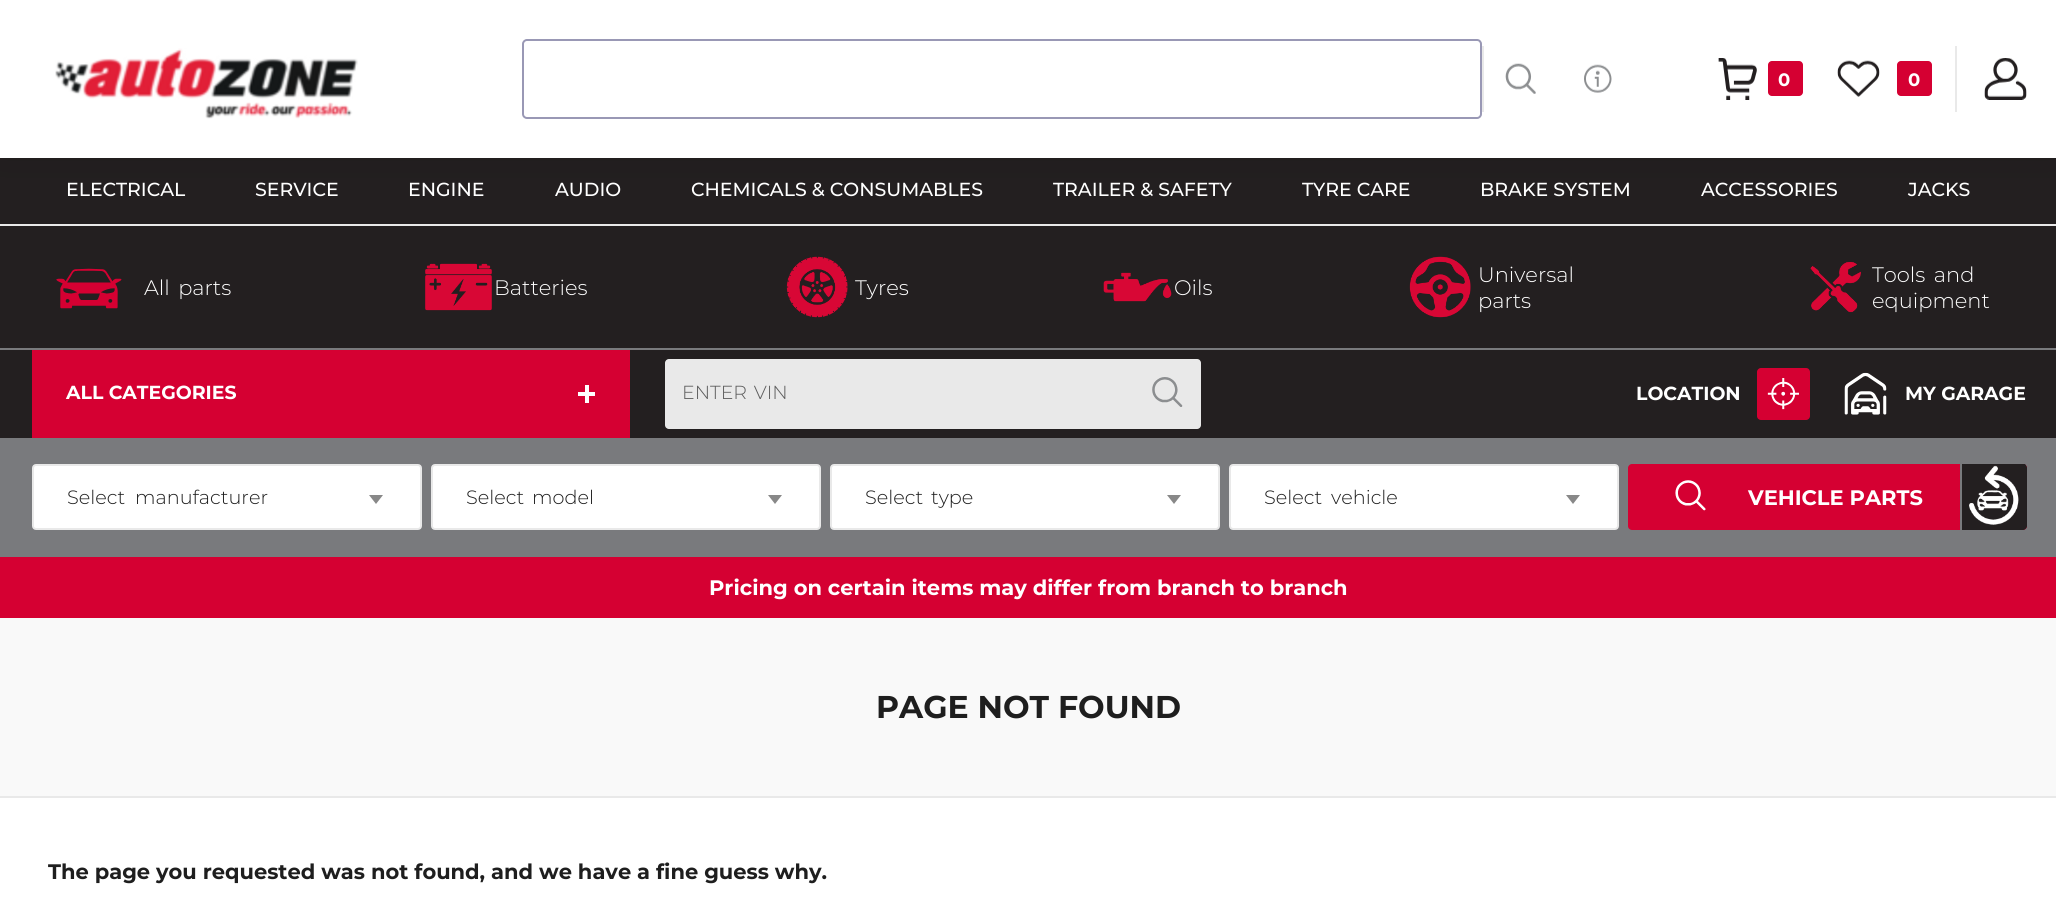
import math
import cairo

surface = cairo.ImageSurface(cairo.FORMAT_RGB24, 2056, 902)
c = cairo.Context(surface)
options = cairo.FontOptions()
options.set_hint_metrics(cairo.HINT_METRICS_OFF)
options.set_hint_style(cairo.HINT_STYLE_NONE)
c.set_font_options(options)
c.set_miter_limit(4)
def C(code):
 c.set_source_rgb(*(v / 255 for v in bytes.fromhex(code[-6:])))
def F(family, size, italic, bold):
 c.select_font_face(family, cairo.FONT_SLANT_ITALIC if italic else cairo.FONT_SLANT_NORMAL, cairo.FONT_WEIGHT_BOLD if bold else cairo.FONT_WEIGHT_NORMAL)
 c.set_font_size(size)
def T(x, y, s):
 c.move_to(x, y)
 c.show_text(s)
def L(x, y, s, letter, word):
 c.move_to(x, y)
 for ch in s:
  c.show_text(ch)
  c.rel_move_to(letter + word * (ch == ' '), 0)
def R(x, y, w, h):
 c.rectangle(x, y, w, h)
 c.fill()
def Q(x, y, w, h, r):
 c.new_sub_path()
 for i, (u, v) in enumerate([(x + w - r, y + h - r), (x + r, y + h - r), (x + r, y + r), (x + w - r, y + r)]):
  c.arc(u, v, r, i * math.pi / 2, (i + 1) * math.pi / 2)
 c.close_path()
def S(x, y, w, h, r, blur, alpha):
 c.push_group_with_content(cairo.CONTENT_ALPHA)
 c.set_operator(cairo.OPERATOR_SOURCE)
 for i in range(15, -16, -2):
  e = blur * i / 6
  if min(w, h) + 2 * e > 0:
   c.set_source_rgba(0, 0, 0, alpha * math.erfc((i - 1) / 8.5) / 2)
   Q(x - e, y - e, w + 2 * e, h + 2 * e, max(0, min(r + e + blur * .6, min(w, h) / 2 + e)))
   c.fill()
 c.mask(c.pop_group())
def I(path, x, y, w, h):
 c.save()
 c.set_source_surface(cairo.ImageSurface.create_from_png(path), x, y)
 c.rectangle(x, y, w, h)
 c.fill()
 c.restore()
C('ffffff')
c.paint()
C('231f20')
R(0,158,2056,66)
C('000000')
S(0,0,2056,158,0,17.5,.1)
C('ffffff')
R(0,0,2056,158)
I('1.png',55,48,303,71)
Q(523,40,958,78,4)
C('9998b5')
c.stroke()
C('e9e9e9')
R(1482,46,2,66)
I('2.png',1505,63,31,31)
I('3.png',1584,64,28,29)
I('4.png',1718,58,39,42)
C('d50032')
Q(1768,61,35,35,4)
c.fill()
F('Montserrat',18,0,1)
C('ffffff')
T(1778,86,'0')
I('5.png',1837,60,43,37)
C('d50032')
Q(1897,61,35,35,4)
c.fill()
C('ffffff')
T(1908,86,'0')
C('e9e9e9')
R(1955,46,2,66)
I('6.png',1984,58,43,42)
R(0,224,2056,2)
F('Montserrat Medium',18.9,0,0)
C('ffffff')
T(66,196,'ELECTRICAL')
T(255,196,'SERVICE')
T(408,196,'ENGINE')
T(555,196,'AUDIO')
T(691,196,'CHEMICALS & CONSUMABLES')
T(1053,196,'TRAILER & SAFETY')
T(1302,196,'TYRE CARE')
T(1480,196,'BRAKE SYSTEM')
T(1701,196,'ACCESSORIES')
T(1908,196,'JACKS')
C('231f20')
R(0,226,2056,212)
C('797a7d')
R(0,348,2056,2)
I('7.png',56,268,66,41)
F('Montserrat Light',21,0,0)
C('ffffff')
L(144,295,'All parts',0,3)
I('8.png',425,263,67,48)
T(494,295,'Batteries')
I('9.png',786,256,62,62)
T(855,295,'Tyres')
I('10.png',1103,272,69,30)
T(1174,295,'Oils')
I('11.png',1409,256,62,62)
T(1478,282,'Universal')
T(1478,308,'parts')
I('12.png',1810,262,51,51)
L(1872,282,'Tools and',0,3)
T(1872,308,'equipment')
C('d50032')
R(32,350,598,88)
F('Montserrat',18.9,0,1)
C('ffffff')
T(66,399,'ALL CATEGORIES')
R(585,385,4,18)
R(578,392,17,4)
C('e9e9e9')
Q(665,359,536,70,4)
c.fill()
F('Montserrat Light',18.9,0,0)
C('5b5b5b')
L(682,399,'ENTER VIN',0,2)
I('13.png',1152,377,31,30)
F('Montserrat',18.9,0,1)
C('ffffff')
T(1636,400,'LOCATION')
C('d50032')
Q(1757,368,53,52,4)
c.fill()
I('14.png',1767,378,32,32)
I('15.png',1844,372,43,43)
C('ffffff')
T(1905,400,'MY GARAGE')
C('797a7d')
R(0,438,2056,119)
C('ffffff')
Q(33,465,388,64,3)
c.fill_preserve()
C('e9e9e9')
c.stroke()
F('Montserrat Light',19.25,0,0)
C('1e1e1e')
L(67,504,'Select manufacturer',0,5)
C('888888')
c.new_path()
c.move_to(369,495)
c.line_to(383,495)
c.line_to(376,504)
c.close_path()
c.fill()
C('ffffff')
Q(432,465,388,64,3)
c.fill_preserve()
C('e9e9e9')
c.stroke()
C('1e1e1e')
L(466,504,'Select model',0,3)
C('888888')
c.new_path()
c.move_to(768,495)
c.line_to(782,495)
c.line_to(775,504)
c.close_path()
c.fill()
C('ffffff')
Q(831,465,388,64,3)
c.fill_preserve()
C('e9e9e9')
c.stroke()
C('1e1e1e')
L(865,504,'Select type',0,3)
C('888888')
c.new_path()
c.move_to(1167,495)
c.line_to(1181,495)
c.line_to(1174,504)
c.close_path()
c.fill()
C('ffffff')
Q(1230,465,388,64,3)
c.fill_preserve()
C('e9e9e9')
c.stroke()
C('1e1e1e')
L(1264,504,'Select vehicle',0,4)
C('888888')
c.new_path()
c.move_to(1566,495)
c.line_to(1580,495)
c.line_to(1573,504)
c.close_path()
c.fill()
C('d50032')
Q(1628,464,399,66,4)
c.fill()
I('16.png',1675,480,31,31)
F('Montserrat',21,0,1)
C('ffffff')
T(1748,505,'VEHICLE PARTS')
C('231f20')
c.new_path()
c.move_to(1960,464)
c.line_to(2023,464)
c.curve_to(2025,464,2027,466,2027,468)
c.line_to(2027,526)
c.curve_to(2027,528,2025,530,2023,530)
c.line_to(1960,530)
c.close_path()
c.fill()
I('17.png',1969,464,58,61)
C('797a7d')
R(1960,464,2,66)
C('d50032')
R(0,557,2056,61)
C('ffffff')
T(709,595,'Pricing on certain items may differ from branch to branch')
C('f9f9f9')
R(0,618,2056,178)
C('e9e9e9')
R(0,796,2056,2)
F('Montserrat',31.5,0,1)
C('1e1e1e')
T(876,718,'PAGE NOT FOUND')
F('Montserrat',21,0,1)
T(48,879,'The page you requested was not found, and we have a fine guess why.')
surface.write_to_png('o.png')
